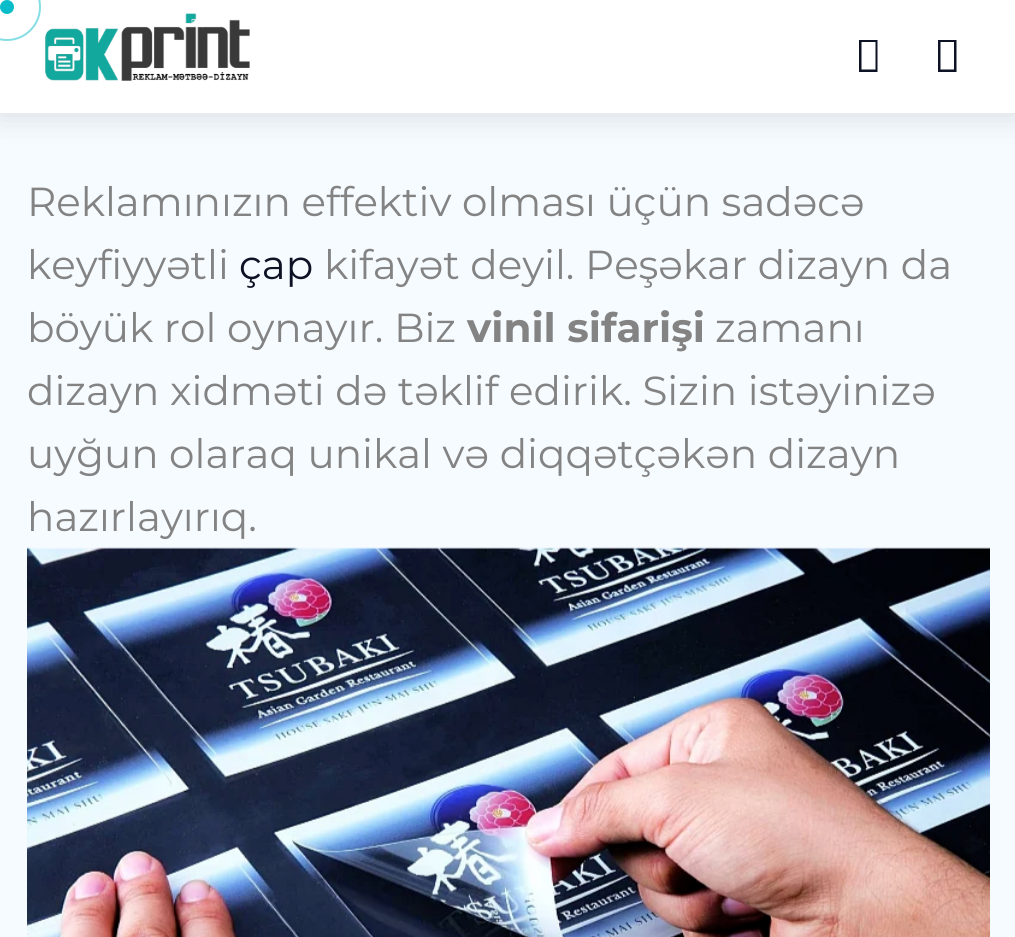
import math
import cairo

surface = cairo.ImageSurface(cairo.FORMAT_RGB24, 1015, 937)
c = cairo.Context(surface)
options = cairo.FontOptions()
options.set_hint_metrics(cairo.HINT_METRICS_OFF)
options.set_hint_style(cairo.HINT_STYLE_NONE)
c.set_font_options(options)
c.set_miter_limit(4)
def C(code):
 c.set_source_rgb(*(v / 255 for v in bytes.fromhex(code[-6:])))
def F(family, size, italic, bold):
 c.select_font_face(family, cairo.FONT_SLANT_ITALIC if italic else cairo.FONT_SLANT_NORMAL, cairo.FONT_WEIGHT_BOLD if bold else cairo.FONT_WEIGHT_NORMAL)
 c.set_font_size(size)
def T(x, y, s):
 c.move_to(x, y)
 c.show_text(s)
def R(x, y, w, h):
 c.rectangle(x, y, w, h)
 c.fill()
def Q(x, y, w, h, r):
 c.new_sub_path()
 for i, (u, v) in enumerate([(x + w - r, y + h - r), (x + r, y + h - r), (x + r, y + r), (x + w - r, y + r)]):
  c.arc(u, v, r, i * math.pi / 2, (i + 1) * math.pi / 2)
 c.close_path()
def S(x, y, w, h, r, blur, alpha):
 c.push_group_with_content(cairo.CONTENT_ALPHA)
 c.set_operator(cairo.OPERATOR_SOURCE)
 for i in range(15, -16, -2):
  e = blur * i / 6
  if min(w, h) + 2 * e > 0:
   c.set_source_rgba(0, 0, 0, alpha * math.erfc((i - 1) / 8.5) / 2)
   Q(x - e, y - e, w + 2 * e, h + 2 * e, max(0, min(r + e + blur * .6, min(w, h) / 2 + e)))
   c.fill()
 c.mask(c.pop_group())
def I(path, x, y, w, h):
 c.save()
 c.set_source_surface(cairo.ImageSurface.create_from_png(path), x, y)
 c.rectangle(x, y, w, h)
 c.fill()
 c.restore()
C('f6fbff')
c.paint()
C('000000')
S(0,2,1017,113,0,16,.13)
C('ffffff')
R(0,0,1015,113)
c.arc(7,7,33,0,2 * math.pi)
C('84dee4')
c.stroke()
I('1.png',45,13,205,68)
C('0d1224')
c.new_path()
c.move_to(859,72)
c.line_to(859,40)
c.line_to(877.5,40)
c.line_to(877.5,72)
c.close_path()
c.move_to(861.5,69.5)
c.line_to(875.5,69.5)
c.line_to(875.5,42)
c.line_to(861.5,42)
c.close_path()
c.fill()
c.new_path()
c.move_to(938,72)
c.line_to(938,40)
c.line_to(956.5,40)
c.line_to(956.5,72)
c.close_path()
c.move_to(940.5,69.5)
c.line_to(954,69.5)
c.line_to(954,42)
c.line_to(940.5,42)
c.close_path()
c.fill()
C('08bdc9')
c.arc(7,7,7,0,2 * math.pi)
c.fill()
F('Montserrat',40.5,0,0)
C('838383')
T(27,216,'Reklamınızın effektiv olması üçün sadəcə')
T(27,279,'keyfiyyətli')
C('0d1224')
T(239,279,'çap')
C('838383')
T(324,279,'kifayət deyil. Peşəkar dizayn da')
T(27,342,'böyük rol oynayır. Biz')
F('Montserrat',40.5,0,1)
T(467,342,'vinil sifarişi')
F('Montserrat',40.5,0,0)
T(715,342,'zamanı')
T(27,405,'dizayn xidməti də təklif edirik. Sizin istəyinizə')
T(27,468,'uyğun olaraq unikal və diqqətçəkən dizayn')
T(27,531,'hazırlayırıq.')
I('2.png',27,547,963,390)
surface.write_to_png('o.png')
